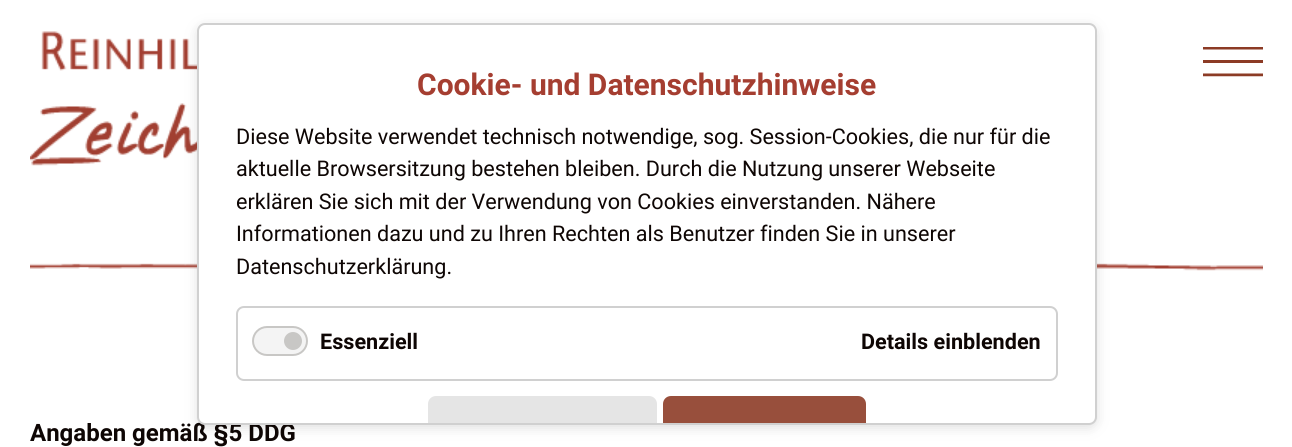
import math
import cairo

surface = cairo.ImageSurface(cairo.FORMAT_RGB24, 1292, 447)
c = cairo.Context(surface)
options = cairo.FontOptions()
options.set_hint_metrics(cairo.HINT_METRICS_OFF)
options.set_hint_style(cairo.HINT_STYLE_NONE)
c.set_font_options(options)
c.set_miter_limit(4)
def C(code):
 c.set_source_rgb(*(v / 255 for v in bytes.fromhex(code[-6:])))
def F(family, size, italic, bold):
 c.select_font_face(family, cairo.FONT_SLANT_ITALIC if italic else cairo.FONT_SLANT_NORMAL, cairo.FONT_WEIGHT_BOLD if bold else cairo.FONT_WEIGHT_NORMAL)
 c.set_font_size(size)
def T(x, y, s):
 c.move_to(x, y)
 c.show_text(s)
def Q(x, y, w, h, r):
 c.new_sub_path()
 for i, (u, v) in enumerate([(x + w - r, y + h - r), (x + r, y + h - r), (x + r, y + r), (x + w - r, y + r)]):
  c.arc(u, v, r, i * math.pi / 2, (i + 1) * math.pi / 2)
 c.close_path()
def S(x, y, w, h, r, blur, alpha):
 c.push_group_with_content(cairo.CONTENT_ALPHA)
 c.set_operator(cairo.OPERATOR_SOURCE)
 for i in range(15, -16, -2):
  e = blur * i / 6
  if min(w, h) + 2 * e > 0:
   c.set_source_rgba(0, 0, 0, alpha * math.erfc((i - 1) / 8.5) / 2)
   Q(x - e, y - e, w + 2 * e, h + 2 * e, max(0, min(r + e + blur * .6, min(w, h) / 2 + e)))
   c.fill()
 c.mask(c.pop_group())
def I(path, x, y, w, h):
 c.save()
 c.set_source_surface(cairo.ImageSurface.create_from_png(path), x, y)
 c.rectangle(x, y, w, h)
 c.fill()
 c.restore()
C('ffffff')
c.paint()
I('1.png',30,31,167,135)
I('3.png',30,263,1233,8)
C('636363')
S(197,26,900,402,8,6,.2)
F('Roboto',24,0,1)
C('0e0604')
T(30,441,'Angaben gemäß §5 DDG')
C('ffffff')
Q(198,24,898,400,7)
c.fill_preserve()
C('d0d0d0')
c.stroke()
F('Roboto',30,0,1)
C('a53e31')
T(417,95,'Cookie- und Datenschutzhinweise')
F('Roboto',21.6,0,0)
C('0e0604')
T(236,144,'Diese Website verwendet technisch notwendige, sog. Session-Cookies, die nur für die')
T(236,176,'aktuelle Browsersitzung bestehen bleiben. Durch die Nutzung unserer Webseite')
T(236,209,'erklären Sie sich mit der Verwendung von Cookies einverstanden. Nähere')
T(236,241,'Informationen dazu und zu Ihren Rechten als Benutzer finden Sie in unserer')
T(236,274,'Datenschutzerklärung.')
Q(237,307,820,73,7)
C('d0d0d0')
c.stroke()
C('f4f4f4')
Q(253,327,54,28,14)
c.fill_preserve()
C('c8c7c5')
c.stroke()
c.arc(293,341,9,0,2 * math.pi)
c.fill()
F('Roboto',21.6,0,1)
C('0e0604')
T(320,349,'Essenziell')
T(861,349,'Details einblenden')
C('e5e5e5')
c.new_path()
c.move_to(436,396)
c.line_to(649,396)
c.curve_to(653.5,396,657,399.5,657,404)
c.line_to(657,423)
c.line_to(428,423)
c.line_to(428,404)
c.curve_to(428,399.5,431.5,396,436,396)
c.close_path()
c.fill()
C('984f3c')
c.new_path()
c.move_to(671,396)
c.line_to(858,396)
c.curve_to(862.5,396,866,399.5,866,404)
c.line_to(866,423)
c.line_to(663,423)
c.line_to(663,404)
c.curve_to(663,399.5,666.5,396,671,396)
c.close_path()
c.fill()
I('2.png',1203,47,60,30)
surface.write_to_png('o.png')
